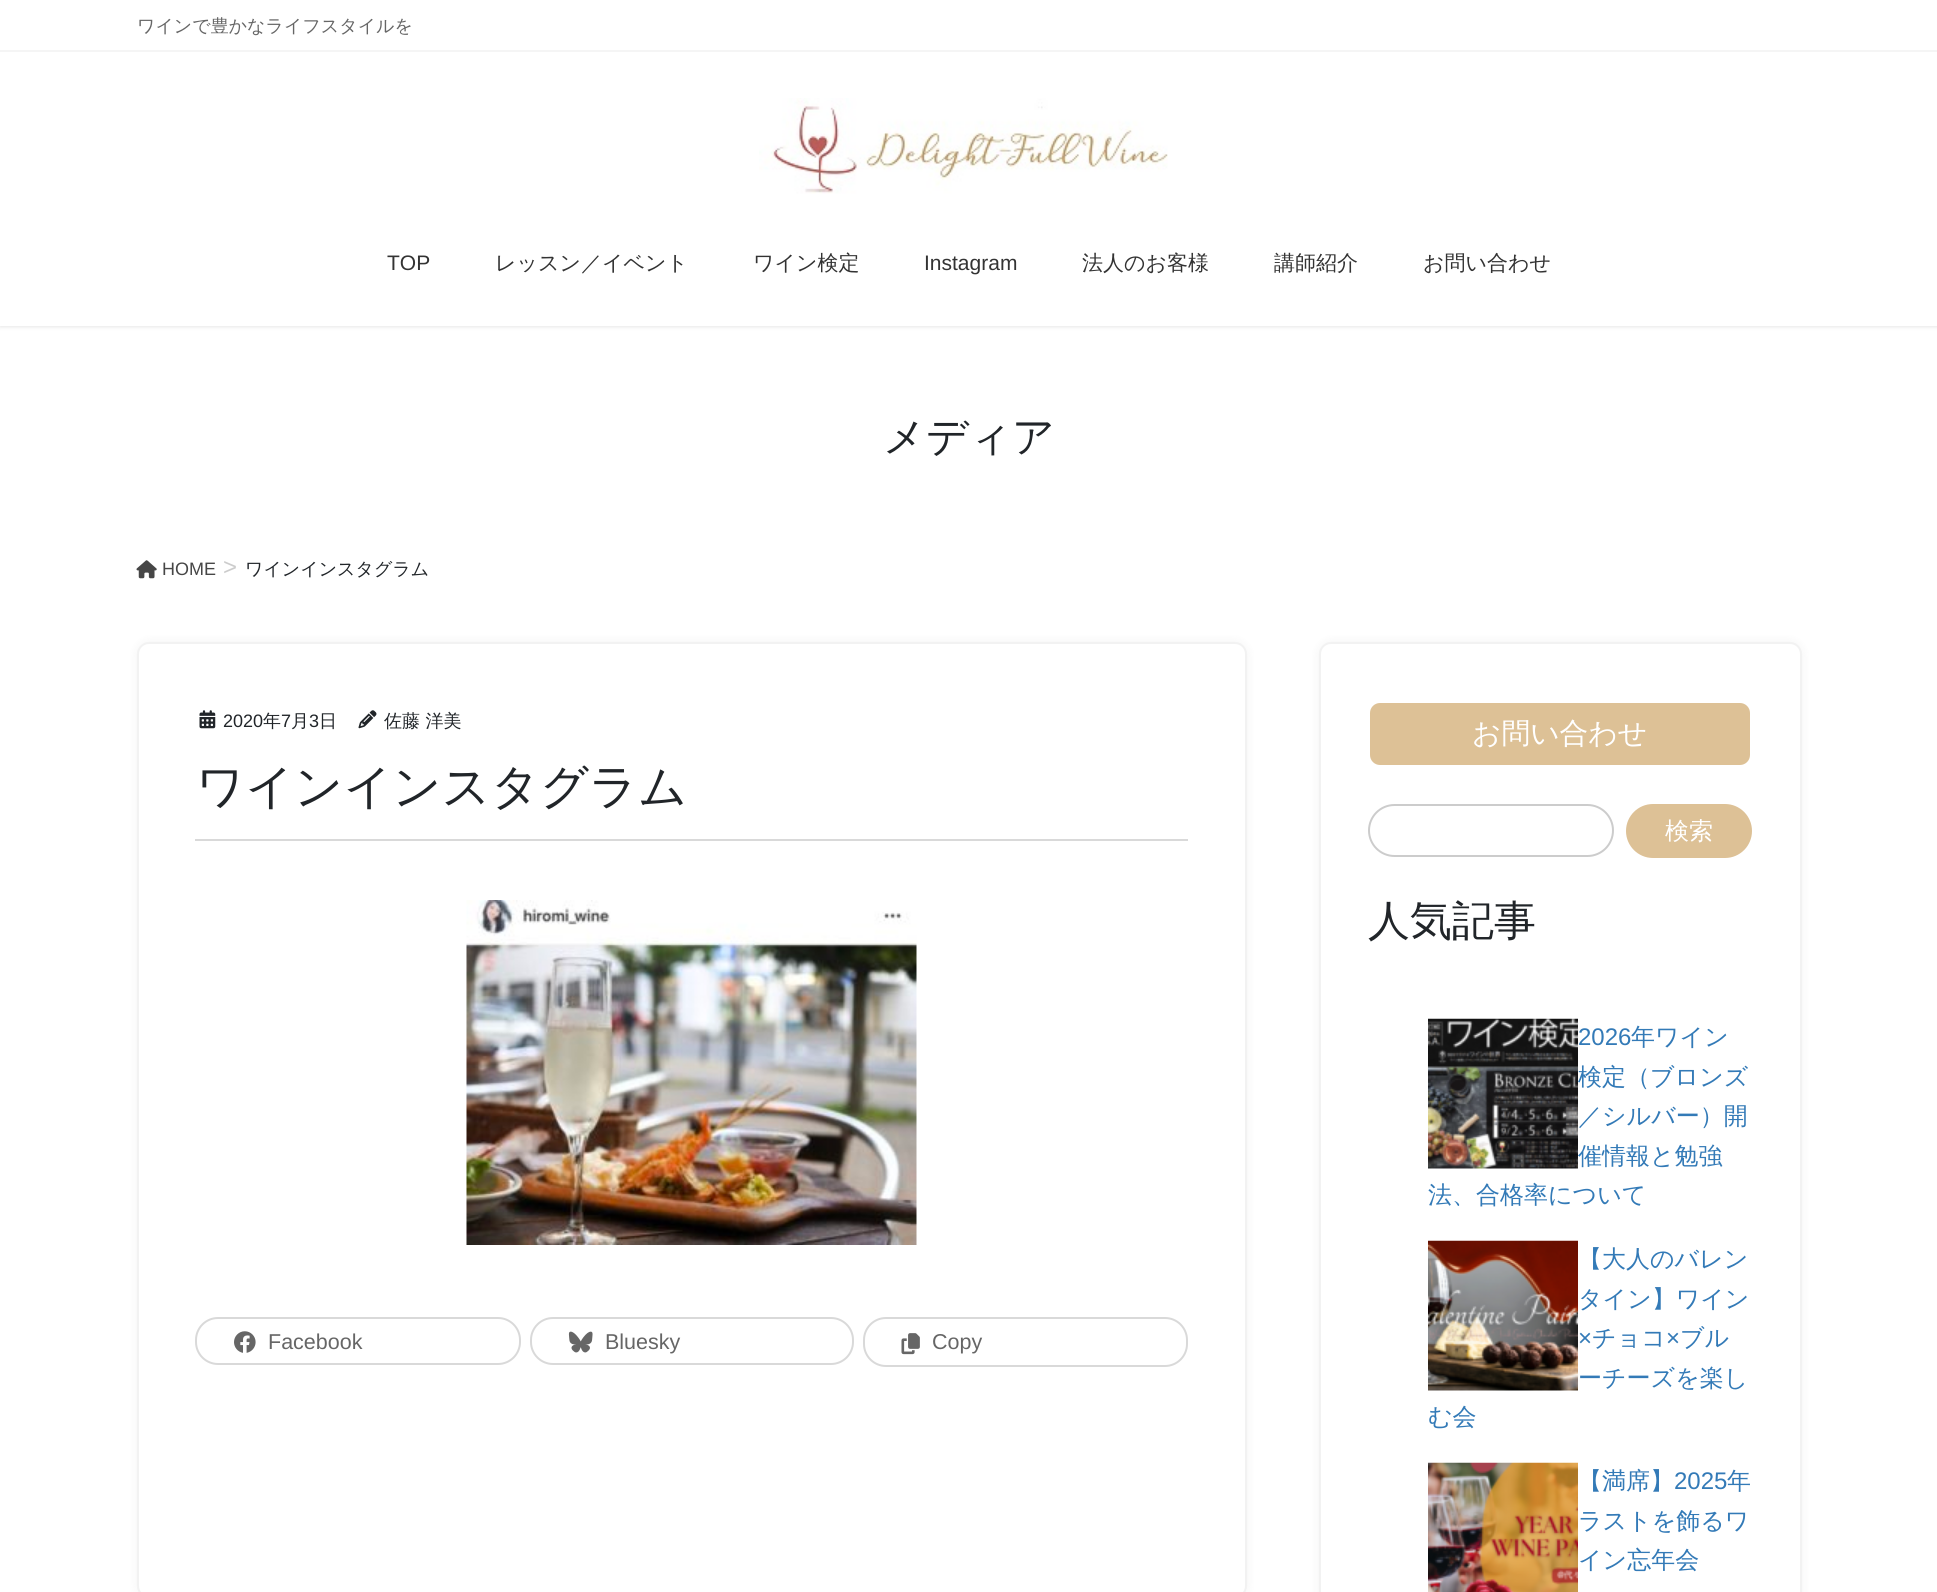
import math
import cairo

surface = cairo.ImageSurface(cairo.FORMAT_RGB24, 1937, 1592)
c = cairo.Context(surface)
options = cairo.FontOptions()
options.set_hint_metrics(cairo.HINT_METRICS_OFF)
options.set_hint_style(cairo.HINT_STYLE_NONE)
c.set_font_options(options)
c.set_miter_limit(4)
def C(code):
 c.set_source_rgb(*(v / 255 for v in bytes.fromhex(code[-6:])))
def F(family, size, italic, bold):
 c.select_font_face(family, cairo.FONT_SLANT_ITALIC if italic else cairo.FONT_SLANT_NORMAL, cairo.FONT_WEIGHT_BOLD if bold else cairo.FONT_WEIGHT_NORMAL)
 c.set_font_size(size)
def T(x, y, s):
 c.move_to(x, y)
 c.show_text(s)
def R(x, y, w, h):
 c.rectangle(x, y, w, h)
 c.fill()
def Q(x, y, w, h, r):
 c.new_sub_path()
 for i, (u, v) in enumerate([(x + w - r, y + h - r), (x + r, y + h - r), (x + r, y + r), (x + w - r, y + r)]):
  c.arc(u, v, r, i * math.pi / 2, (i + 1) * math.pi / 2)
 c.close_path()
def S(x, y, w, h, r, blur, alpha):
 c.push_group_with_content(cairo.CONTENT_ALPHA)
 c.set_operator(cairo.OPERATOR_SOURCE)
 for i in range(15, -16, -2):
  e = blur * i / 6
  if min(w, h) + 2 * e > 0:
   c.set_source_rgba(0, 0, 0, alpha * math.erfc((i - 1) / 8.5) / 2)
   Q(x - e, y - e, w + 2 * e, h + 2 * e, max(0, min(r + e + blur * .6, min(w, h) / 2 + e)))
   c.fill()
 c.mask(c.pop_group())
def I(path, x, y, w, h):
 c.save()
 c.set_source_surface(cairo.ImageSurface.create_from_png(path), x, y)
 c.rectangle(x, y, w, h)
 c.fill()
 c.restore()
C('ffffff')
c.paint()
C('000000')
S(0,-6,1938,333,0,2,.1)
C('ffffff')
R(0,0,1937,326)
C('f5f5f5')
R(0,50,1937,2)
F('WenQuanYi Zen Hei Medium',18,0,0)
C('666666')
T(137,32,'ワインで豊かなライフスタイルを')
I('1.png',759,98,409,96)
F('Liberation Sans',21,0,0)
C('333333')
T(387,270,'TOP')
F('WenQuanYi Zen Hei Medium',21,0,0)
T(495,270,'レッスン／イベント')
T(753,270,'ワイン検定')
F('Liberation Sans',21,0,0)
T(924,270,'Instagram')
F('WenQuanYi Zen Hei Medium',21,0,0)
T(1082,270,'法人のお客様')
T(1274,270,'講師紹介')
T(1423,270,'お問い合わせ')
F('WenQuanYi Zen Hei Medium',42,0,0)
C('212529')
T(883,451,'メディア')
I('2.png',136,560,21,19)
F('Liberation Sans',18,0,0)
C('464646')
T(162,575,'HOME')
F('Liberation Sans',24,0,0)
C('cccccc')
T(223,575,'>')
F('WenQuanYi Zen Hei Medium',18,0,0)
C('212529')
T(245,575,'ワインインスタグラム')
C('000000')
S(137,642,1110,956,12,5,.05)
C('ffffff')
Q(138,643,1108,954,11)
c.fill_preserve()
C('f2f2f2')
c.stroke()
I('3.png',199,710,17,19)
F('Liberation Sans',18,0,0)
C('212529')
T(223,727,'2020')
F('WenQuanYi Zen Hei Medium',18,0,0)
T(263,727,'年')
F('Liberation Sans',18,0,0)
T(281,727,'7')
F('WenQuanYi Zen Hei Medium',18,0,0)
T(291,727,'月')
F('Liberation Sans',18,0,0)
T(309,727,'3')
F('WenQuanYi Zen Hei Medium',18,0,0)
T(319,727,'日')
I('4.png',358,710,19,19)
T(384,727,'佐藤 洋美')
C('d9d9d9')
R(195,839,993,2)
F('WenQuanYi Zen Hei Medium',48,0,0)
C('212529')
T(196,803,'ワインインスタグラム')
I('5.png',466,900,451,345)
Q(196,1318,324,46,22)
C('d9d9d9')
c.stroke()
I('6.png',234,1331,22,22)
F('Liberation Sans',21.5,0,0)
C('666666')
T(268,1349,'Facebook')
Q(531,1318,322,46,22)
C('d9d9d9')
c.stroke()
I('7.png',568,1331,25,22)
C('666666')
T(605,1349,'Bluesky')
Q(864,1318,323,48,22)
C('d9d9d9')
c.stroke()
I('8.png',901,1333,19,22)
C('666666')
T(932,1349,'Copy')
C('000000')
S(1319,642,483,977,12,5,.05)
C('ffffff')
Q(1320,643,481,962,11)
c.fill_preserve()
C('f2f2f2')
c.stroke()
C('ddc196')
Q(1369,702,382,64,11)
c.fill_preserve()
C('ffffff')
c.stroke()
F('WenQuanYi Zen Hei Medium',28.75,0,0)
T(1472,743,'お問い合わせ')
Q(1369,805,244,51,25.5)
C('cccccc')
c.stroke()
C('ddc196')
Q(1626,804,126,54,27)
c.fill()
F('WenQuanYi Zen Hei Medium',24,0,0)
C('ffffff')
T(1665,839,'検索')
F('WenQuanYi Zen Hei Medium',42,0,0)
C('212529')
T(1368,935,'人気記事')
I('9.png',1428,1018,150,151)
F('Liberation Sans',24,0,0)
C('337ab7')
T(1578,1045,'2026')
F('WenQuanYi Zen Hei Medium',24,0,0)
T(1631,1045,'年ワイン')
T(1578,1085,'検定（ブロンズ')
T(1578,1124,'／シルバー）開')
T(1578,1164,'催情報と勉強')
T(1428,1203,'法、合格率について')
I('10.png',1428,1240,150,151)
T(1578,1267,'【大人のバレン')
T(1578,1307,'タイン】ワイン')
F('Liberation Sans',24,0,0)
T(1578,1346,'×')
F('WenQuanYi Zen Hei Medium',24,0,0)
T(1592,1346,'チョコ')
F('Liberation Sans',24,0,0)
T(1666,1346,'×')
F('WenQuanYi Zen Hei Medium',24,0,0)
T(1680,1346,'ブル')
T(1578,1386,'ーチーズを楽し')
T(1428,1425,'む会')
I('11.png',1428,1462,150,130)
T(1578,1489,'【満席】')
F('Liberation Sans',24,0,0)
T(1674,1489,'2025')
F('WenQuanYi Zen Hei Medium',24,0,0)
T(1727,1489,'年')
T(1578,1529,'ラストを飾るワ')
T(1578,1568,'イン忘年会')
surface.write_to_png('o.png')
